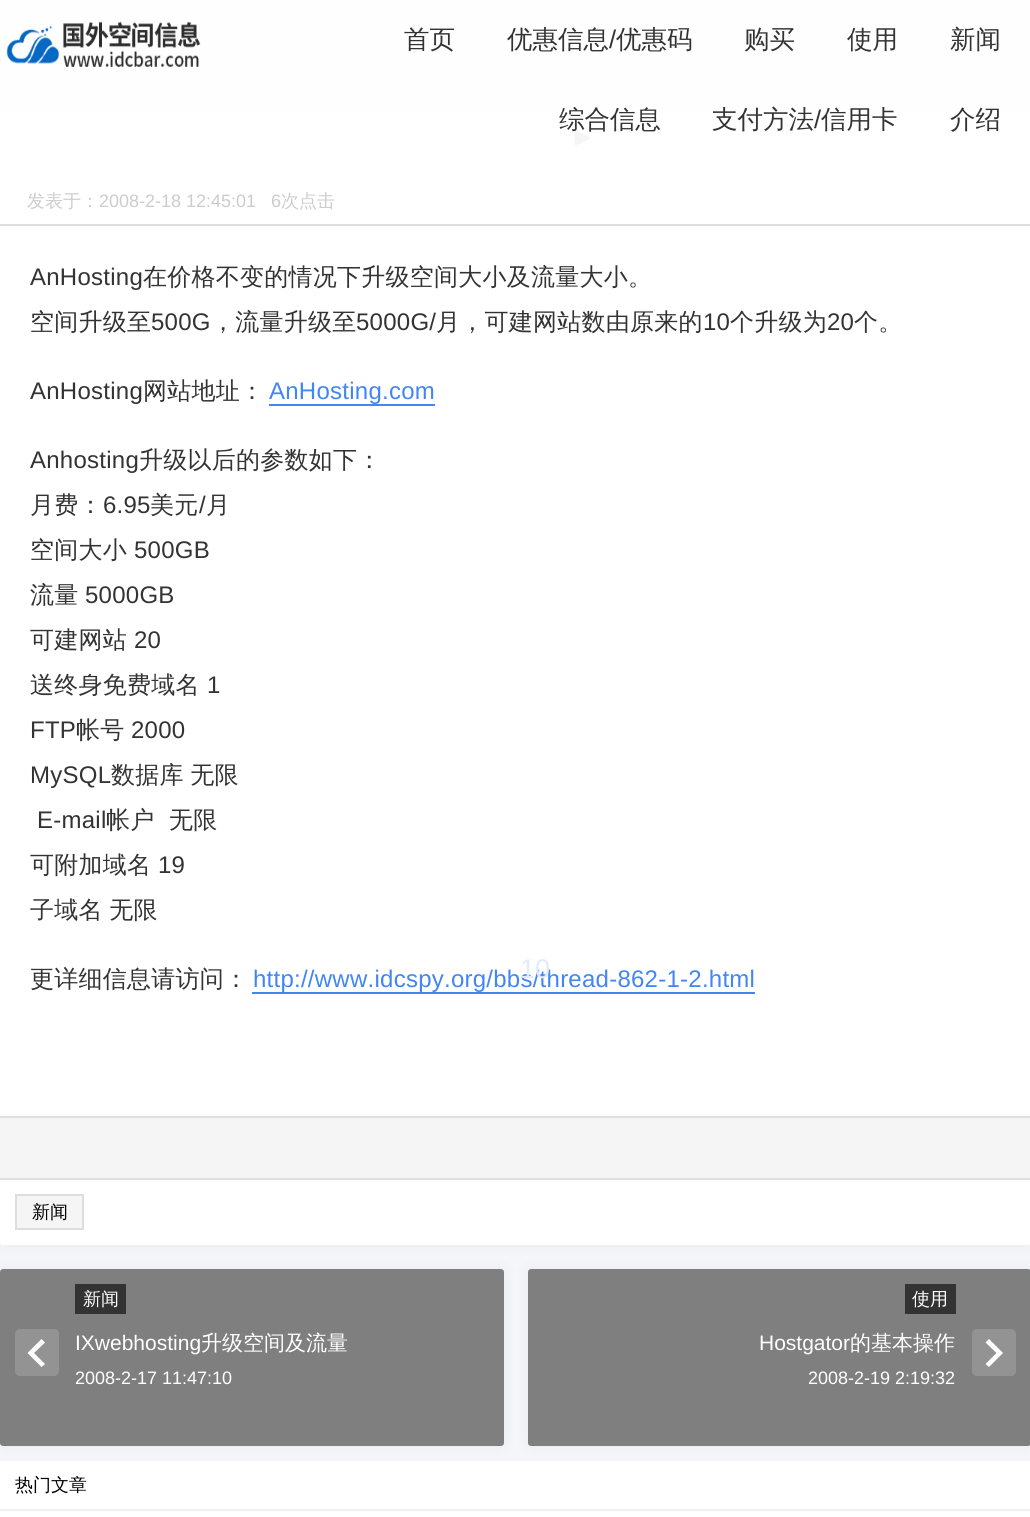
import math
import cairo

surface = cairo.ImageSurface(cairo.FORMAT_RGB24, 1030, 1517)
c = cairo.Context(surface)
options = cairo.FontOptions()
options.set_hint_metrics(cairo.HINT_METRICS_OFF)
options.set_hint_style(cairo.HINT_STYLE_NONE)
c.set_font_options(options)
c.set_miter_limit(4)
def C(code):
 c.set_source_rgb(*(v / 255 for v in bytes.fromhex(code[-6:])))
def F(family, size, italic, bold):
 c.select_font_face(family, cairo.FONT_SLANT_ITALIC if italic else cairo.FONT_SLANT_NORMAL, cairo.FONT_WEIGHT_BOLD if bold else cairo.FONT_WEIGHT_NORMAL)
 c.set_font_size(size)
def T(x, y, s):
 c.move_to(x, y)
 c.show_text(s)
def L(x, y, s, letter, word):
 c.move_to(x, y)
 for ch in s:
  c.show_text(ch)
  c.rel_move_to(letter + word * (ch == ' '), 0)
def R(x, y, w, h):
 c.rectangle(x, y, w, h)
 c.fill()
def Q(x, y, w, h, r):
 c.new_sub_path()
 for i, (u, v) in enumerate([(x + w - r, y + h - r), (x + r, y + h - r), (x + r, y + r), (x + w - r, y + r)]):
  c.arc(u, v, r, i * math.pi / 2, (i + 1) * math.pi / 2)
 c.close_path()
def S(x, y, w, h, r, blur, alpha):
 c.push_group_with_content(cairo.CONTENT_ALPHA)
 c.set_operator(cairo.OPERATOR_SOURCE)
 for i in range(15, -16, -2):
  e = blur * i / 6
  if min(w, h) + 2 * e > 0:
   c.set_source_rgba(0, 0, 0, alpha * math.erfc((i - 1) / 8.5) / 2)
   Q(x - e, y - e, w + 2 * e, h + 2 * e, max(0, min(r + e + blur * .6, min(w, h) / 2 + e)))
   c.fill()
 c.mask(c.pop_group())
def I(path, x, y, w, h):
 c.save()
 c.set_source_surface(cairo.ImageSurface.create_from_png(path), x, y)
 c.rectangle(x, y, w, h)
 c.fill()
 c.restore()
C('f5f6f9')
c.paint()
C('000000')
S(0,111,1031,1134,3,7.5,.05)
C('ffffff')
Q(0,111,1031,1134,3)
c.fill()
I('2.png',574,130,16,16)
c.set_source_rgba(1,1,1,0.9)
R(0,0,1030,146)
I('1.png',6,21,195,46)
F('WenQuanYi Zen Hei Medium',25.5,0,0)
C('333333')
T(404,48,'首页')
T(507,48,'优惠信息')
F('Liberation Sans',25.5,0,0)
T(609,48,'/')
F('WenQuanYi Zen Hei Medium',25.5,0,0)
T(616,48,'优惠码')
T(744,48,'购买')
T(847,48,'使用')
T(950,48,'新闻')
T(559,128,'综合信息')
T(712,128,'支付方法')
F('Liberation Sans',25.5,0,0)
T(814,128,'/')
F('WenQuanYi Zen Hei Medium',25.5,0,0)
T(821,128,'信用卡')
T(950,128,'介绍')
C('dddfe2')
R(0,224,1030,2)
F('WenQuanYi Zen Hei Medium',18,0,0)
C('cccccc')
T(27,207,'发表于：')
F('Liberation Sans',18,0,0)
T(99,207,'2008-2-18 12:45:01')
T(271,207,'6')
F('WenQuanYi Zen Hei Medium',18,0,0)
T(281,207,'次点击')
F('Liberation Sans',24,0,0)
C('333333')
L(30,285,'AnHosting',.25,0)
F('WenQuanYi Zen Hei Medium',24,0,0)
L(143,285,'在价格不变的情况下升级空间大小及流量大小。',.25,0)
L(30,330,'空间升级至',.25,0)
F('Liberation Sans',24,0,0)
L(151,330,'500G',.25,0)
F('WenQuanYi Zen Hei Medium',24,0,0)
L(211,330,'，流量升级至',.25,0)
F('Liberation Sans',24,0,0)
L(356,330,'5000G/',.25,0)
F('WenQuanYi Zen Hei Medium',24,0,0)
L(436,330,'月，可建网站数由原来的',.25,0)
F('Liberation Sans',24,0,0)
L(703,330,'10',.25,0)
F('WenQuanYi Zen Hei Medium',24,0,0)
L(730,330,'个升级为',.25,0)
F('Liberation Sans',24,0,0)
L(827,330,'20',.25,0)
F('WenQuanYi Zen Hei Medium',24,0,0)
L(854,330,'个。',.25,0)
F('Liberation Sans',24,0,0)
L(30,399,'AnHosting',.25,0)
F('WenQuanYi Zen Hei Medium',24,0,0)
L(143,399,'网站地址：',.25,0)
F('Liberation Sans',24,0,0)
C('4285f4')
L(269,399,'AnHosting.com',.25,0)
R(269,404,166,2)
C('333333')
L(30,468,'Anhosting',.25,0)
F('WenQuanYi Zen Hei Medium',24,0,0)
L(139,468,'升级以后的参数如下：',.25,0)
L(30,513,'月费：',.25,0)
F('Liberation Sans',24,0,0)
L(103,513,'6.95',.25,0)
F('WenQuanYi Zen Hei Medium',24,0,0)
L(150,513,'美元',.25,0)
F('Liberation Sans',24,0,0)
L(199,513,'/',.25,0)
F('WenQuanYi Zen Hei Medium',24,0,0)
L(206,513,'月',.25,0)
L(30,558,'空间大小',.25,0)
F('Liberation Sans',24,0,0)
L(134,558,'500GB',.25,0)
F('WenQuanYi Zen Hei Medium',24,0,0)
L(30,603,'流量',.25,0)
F('Liberation Sans',24,0,0)
L(85,603,'5000GB',.25,0)
F('WenQuanYi Zen Hei Medium',24,0,0)
L(30,648,'可建网站',.25,0)
F('Liberation Sans',24,0,0)
L(134,648,'20',.25,0)
F('WenQuanYi Zen Hei Medium',24,0,0)
L(30,693,'送终身免费域名',.25,0)
F('Liberation Sans',24,0,0)
L(207,693,'1',.25,0)
L(30,738,'FTP',.25,0)
F('WenQuanYi Zen Hei Medium',24,0,0)
L(76,738,'帐号',.25,0)
F('Liberation Sans',24,0,0)
L(131,738,'2000',.25,0)
L(30,783,'MySQL',.25,0)
F('WenQuanYi Zen Hei Medium',24,0,0)
L(111,783,'数据库 无限',.25,-1)
F('Liberation Sans',24,0,0)
L(37,828,'E-mail',.25,0)
F('WenQuanYi Zen Hei Medium',24,0,0)
L(106,828,'帐户',.25,0)
L(169,828,'无限',.25,0)
L(30,873,'可附加域名',.25,0)
F('Liberation Sans',24,0,0)
L(158,873,'19',.25,0)
F('WenQuanYi Zen Hei Medium',24,0,0)
L(30,918,'子域名 无限',.25,-1)
L(30,987,'更详细信息请访问：',.25,0)
F('Liberation Sans',24,0,0)
C('4285f4')
L(253,987,'http://www.idcspy.org/bbs/thread-862-1-2.html',.25,0)
R(252,992,503,2)
F('Liberation Sans',27,0,0)
C('e1ebfd')
T(520,978,'10')
C('f5f5f5')
R(0,1118,1030,60)
C('dddfe2')
R(0,1116,1030,2)
R(0,1178,1030,2)
C('f5f5f5')
c.rectangle(16,1195,67,34)
c.fill_preserve()
C('dddddd')
c.stroke()
F('WenQuanYi Zen Hei Medium',18,0,0)
C('000000')
T(32,1218,'新闻')
C('000000')
S(0,1269,504,177,3,7.5,.05)
C('ffffff')
Q(0,1269,504,177,3)
c.fill()
c.set_source_rgba(0,0,0,0.5)
Q(0,1269,504,177,3)
c.fill()
C('333333')
R(75,1284,51,30)
C('ffffff')
T(83,1305,'新闻')
C('939393')
Q(15,1329,44,47,5)
c.fill()
C('ffffff')
c.new_path()
c.move_to(45,1342.5)
c.line_to(34,1353)
c.line_to(45,1364)
c.line_to(41.5,1367)
c.line_to(27.5,1353)
c.line_to(41.5,1339)
c.close_path()
c.fill()
F('Liberation Sans',21,0,0)
T(75,1350,'IXwebhosting')
F('WenQuanYi Zen Hei Medium',21,0,0)
T(201,1350,'升级空间及流量')
F('Liberation Sans',18,0,0)
T(75,1384,'2008-2-17 11:47:10')
C('000000')
S(528,1269,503,177,3,7.5,.05)
C('ffffff')
Q(528,1269,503,177,3)
c.fill()
c.set_source_rgba(0,0,0,0.5)
Q(528,1269,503,177,3)
c.fill()
C('333333')
R(905,1284,51,30)
F('WenQuanYi Zen Hei Medium',18,0,0)
C('ffffff')
T(912,1305,'使用')
F('Liberation Sans',21,0,0)
T(759,1350,'Hostgator')
F('WenQuanYi Zen Hei Medium',21,0,0)
T(850,1350,'的基本操作')
C('939393')
Q(972,1329,44,47,5)
c.fill()
C('ffffff')
c.new_path()
c.move_to(989,1339)
c.line_to(1003,1353)
c.line_to(989,1367)
c.line_to(985.5,1364)
c.line_to(996.5,1353)
c.line_to(985.5,1342.5)
c.close_path()
c.fill()
F('Liberation Sans',18,0,0)
T(808,1384,'2008-2-19 2:19:32')
R(0,1461,1030,51)
Q(0,1509,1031,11,3)
c.fill()
C('f0f0f0')
R(0,1509,1030,2)
F('WenQuanYi Zen Hei Medium',18,0,0)
C('000000')
T(15,1491,'热门文章')
surface.write_to_png('o.png')
